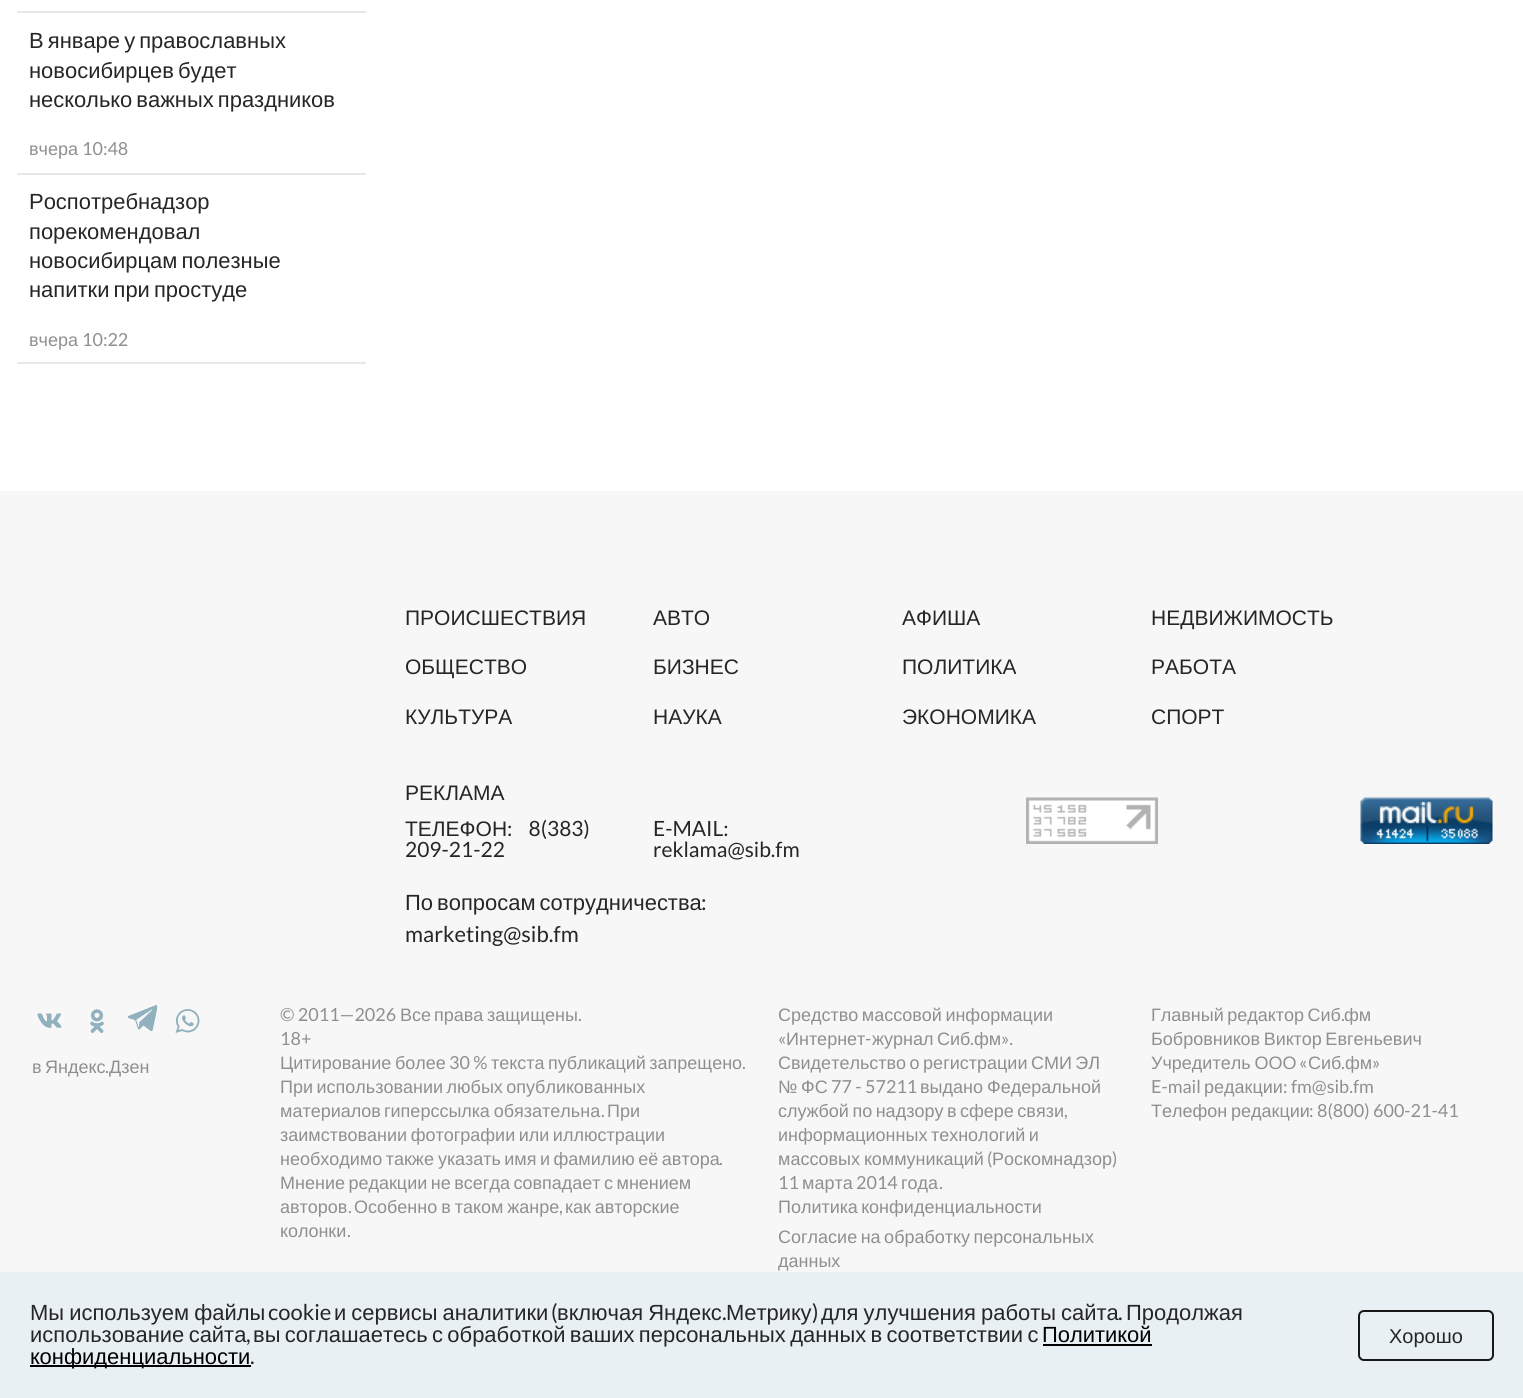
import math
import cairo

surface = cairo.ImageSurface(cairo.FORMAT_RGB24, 1523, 1398)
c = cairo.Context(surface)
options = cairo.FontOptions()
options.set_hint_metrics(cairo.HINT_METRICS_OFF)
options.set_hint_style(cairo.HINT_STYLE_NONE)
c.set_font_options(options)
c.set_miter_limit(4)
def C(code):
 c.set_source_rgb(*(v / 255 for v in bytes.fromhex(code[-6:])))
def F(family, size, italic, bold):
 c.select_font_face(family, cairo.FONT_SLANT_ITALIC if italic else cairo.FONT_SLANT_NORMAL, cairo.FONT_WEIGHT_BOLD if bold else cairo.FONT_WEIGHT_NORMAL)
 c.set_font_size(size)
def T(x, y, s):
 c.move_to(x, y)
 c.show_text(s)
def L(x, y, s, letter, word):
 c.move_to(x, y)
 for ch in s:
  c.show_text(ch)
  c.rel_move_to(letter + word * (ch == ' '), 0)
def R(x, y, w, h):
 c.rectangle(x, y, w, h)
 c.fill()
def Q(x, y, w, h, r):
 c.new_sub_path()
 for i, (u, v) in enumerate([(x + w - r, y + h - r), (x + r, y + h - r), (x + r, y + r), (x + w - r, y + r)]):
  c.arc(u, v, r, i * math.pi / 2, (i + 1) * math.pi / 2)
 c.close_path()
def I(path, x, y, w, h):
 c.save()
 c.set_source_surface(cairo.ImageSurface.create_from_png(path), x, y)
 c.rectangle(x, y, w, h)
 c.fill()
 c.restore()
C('ffffff')
c.paint()
C('e8e8e8')
R(17,11,349,2)
R(17,173,349,2)
F('Liberation Sans',21.95,0,0)
C('262626')
L(29,48,'В январе у православных',0,-2)
L(29,78,'новосибирцев будет',0,-2)
L(29,107,'несколько важных праздников',0,-2)
F('Liberation Sans',18,0,0)
C('8f8f8f')
T(29,155,'вчера')
F('Lato',18,0,0)
T(82,155,'10:48')
C('e8e8e8')
R(17,362,349,2)
F('Liberation Sans',21.95,0,0)
C('262626')
T(29,209,'Роспотребнадзор')
T(29,239,'порекомендовал')
L(29,268,'новосибирцам полезные',0,-2)
L(29,297,'напитки при простуде',0,-2)
F('Liberation Sans',18,0,0)
C('8f8f8f')
T(29,346,'вчера')
F('Lato',18,0,0)
T(82,346,'10:22')
C('f7f7f7')
R(0,491,1523,781)
F('Liberation Sans',21,0,0)
C('262626')
T(405,625,'ПРОИСШЕСТВИЯ')
T(405,674,'ОБЩЕСТВО')
T(405,724,'КУЛЬТУРА')
T(653,625,'АВТО')
T(653,674,'БИЗНЕС')
T(653,724,'НАУКА')
T(902,625,'АФИША')
T(902,674,'ПОЛИТИКА')
T(902,724,'ЭКОНОМИКА')
T(1151,625,'НЕДВИЖИМОСТЬ')
T(1151,674,'РАБОТА')
T(1151,724,'СПОРТ')
T(405,800,'РЕКЛАМА')
T(405,836,'ТЕЛЕФОН')
F('Lato',21,0,0)
T(507,836,':    8(383)')
T(405,857,'209-21-22')
T(653,836,'E-MAIL:')
T(653,857,'reklama@sib.fm')
I('1.png',1026,797,132,47)
I('2.png',1360,797,133,47)
F('Liberation Sans',21.95,0,0)
L(405,910,'По вопросам сотрудничества',0,-2)
F('Lato',21.95,0,0)
T(701,910,':')
T(405,942,'marketing@sib.fm')
I('3.png',37,1013,25,15)
I('4.png',90,1009,14,24)
I('5.png',127,1005,31,26)
I('6.png',175,1009,25,24)
F('Liberation Sans',18,0,0)
C('8f8f8f')
L(32,1073,'в Яндекс',0,-1.5)
F('Lato',18,0,0)
T(105,1073,'.')
F('Liberation Sans',18,0,0)
T(109,1073,'Дзен')
F('Lato',18,0,0)
T(280,1021,'© 2011—2026')
F('Liberation Sans',18,0,0)
T(400,1021,'Все')
T(434,1021,'права')
T(487,1021,'защищены')
F('Lato',18,0,0)
T(578,1021,'.')
T(280,1045,'18+')
F('Liberation Sans',18,0,0)
T(280,1069,'Цитирование')
T(395,1069,'более')
F('Lato',18,0,0)
T(449,1069,'30 %')
F('Liberation Sans',18,0,0)
L(491,1069,'текста публикаций запрещено',0,-1.5)
F('Lato',18,0,0)
T(742,1069,'.')
F('Liberation Sans',18,0,0)
L(280,1093,'При использовании любых опубликованных',0,-1.5)
T(280,1117,'материалов')
L(384,1117,'гиперссылка обязательна',0,-1)
F('Lato',18,0,0)
T(601,1117,'.')
F('Liberation Sans',18,0,0)
T(607,1117,'При')
L(280,1141,'заимствовании фотографии или иллюстрации',0,-1.5)
L(280,1165,'необходимо также',0,-1.5)
L(438,1165,'указать имя и фамилию её автора',0,-1.5)
F('Lato',18,0,0)
T(719,1165,'.')
F('Liberation Sans',18,0,0)
L(280,1189,'Мнение редакции не всегда совпадает с мнением',0,-1.5)
T(280,1213,'авторов')
F('Lato',18,0,0)
T(348,1213,'.')
F('Liberation Sans',18,0,0)
L(354,1213,'Особенно в таком жанре',0,-1)
F('Lato',18,0,0)
T(559,1213,',')
F('Liberation Sans',18,0,0)
L(565,1213,'как авторские',0,-1)
T(280,1237,'колонки')
F('Lato',18,0,0)
T(347,1237,'.')
F('Liberation Sans',18,0,0)
L(778,1021,'Средство массовой информации',0,-1.5)
F('Lato',18,0,0)
T(778,1045,'«')
F('Liberation Sans',18,0,0)
T(786,1045,'Интернет')
F('Lato',18,0,0)
T(865,1045,'-')
F('Liberation Sans',18,0,0)
L(872,1045,'журнал Сиб',0,-1.5)
T(974,1045,'фм')
F('Lato',18,0,0)
T(1001,1045,'».')
T(970,1045,'.')
F('Liberation Sans',18,0,0)
L(778,1069,'Свидетельство о регистрации СМИ ЭЛ',0,-1.5)
T(778,1093,'№')
T(801,1093,'ФС')
F('Lato',18,0,0)
T(831,1093,'77 - 57211')
F('Liberation Sans',18,0,0)
T(920,1093,'выдано')
T(987,1093,'Федеральной')
L(778,1117,'службой по надзору в сфере связи',0,-1.5)
F('Lato',18,0,0)
T(1064,1117,',')
F('Liberation Sans',18,0,0)
L(778,1141,'информационных технологий и',0,-1.5)
L(778,1165,'массовых коммуникаций',0,-1)
F('Lato',18,0,0)
T(987,1165,'(')
F('Liberation Sans',18,0,0)
T(992,1165,'Роскомнадзор')
F('Lato',18,0,0)
T(1112,1165,')')
T(778,1189,'11')
F('Liberation Sans',18,0,0)
T(802,1189,'марта')
F('Lato',18,0,0)
T(856,1189,'2014')
F('Liberation Sans',18,0,0)
T(901,1189,'года')
F('Lato',18,0,0)
T(939,1189,'.')
F('Liberation Sans',18,0,0)
L(778,1213,'Политика конфиденциальности',0,-1.5)
L(778,1243,'Согласие на обработку персональных',0,-1.5)
T(778,1267,'данных')
L(1151,1021,'Главный редактор Сиб',0,-1.5)
F('Lato',18,0,0)
T(1341,1021,'.')
F('Liberation Sans',18,0,0)
T(1344,1021,'фм')
L(1151,1045,'Бобровников Виктор Евгеньевич',0,-1.5)
L(1151,1069,'Учредитель ООО',0,-1)
F('Lato',18,0,0)
T(1299,1069,'«')
F('Liberation Sans',18,0,0)
T(1308,1069,'Сиб')
F('Lato',18,0,0)
T(1341,1069,'.')
F('Liberation Sans',18,0,0)
T(1345,1069,'фм')
F('Lato',18,0,0)
T(1372,1069,'»')
T(1151,1093,'E-mail')
F('Liberation Sans',18,0,0)
T(1204,1093,'редакции')
F('Lato',18,0,0)
T(1283,1093,': fm@sib.fm')
F('Liberation Sans',18,0,0)
T(1151,1117,'Телефон')
T(1231,1117,'редакции')
F('Lato',18,0,0)
T(1309,1117,': 8(800) 600-21-41')
C('e9f0f3')
R(0,1272,1523,126)
F('Liberation Sans',21.95,0,0)
C('262626')
L(30,1320,'Мы используем файлы',0,-1)
F('Lato',21.95,0,0)
T(268,1320,'cookie')
F('Liberation Sans',21.95,0,0)
L(334,1320,'и сервисы аналитики',0,-1)
F('Lato',21.95,0,0)
T(551,1320,'(')
F('Liberation Sans',21.95,0,0)
L(557,1320,'включая Яндекс',0,-1)
F('Lato',21.95,0,0)
T(722,1320,'.')
F('Liberation Sans',21.95,0,0)
T(726,1320,'Метрику')
F('Lato',21.95,0,0)
T(812,1320,')')
F('Liberation Sans',21.95,0,0)
L(821,1320,'для улучшения работы сайта',0,-1)
F('Lato',21.95,0,0)
T(1118,1320,'.')
F('Liberation Sans',21.95,0,0)
T(1126,1320,'Продолжая')
L(30,1342,'использование сайта',0,-1.75)
F('Lato',21.95,0,0)
T(246,1342,',')
F('Liberation Sans',21.95,0,0)
L(253,1342,'вы соглашаетесь с обработкой ваших персональных данных в соответствии с',0,-1.75)
C('000000')
T(1042,1342,'Политикой')
R(1043,1344,109,2)
R(30,1365,221,2)
T(30,1364,'конфиденциальности')
F('Lato',21.95,0,0)
C('262626')
T(250,1364,'.')
Q(1359,1311,134,49,5)
C('171818')
c.stroke()
F('Liberation Sans',20,0,0)
C('262626')
T(1389,1343,'Хорошо')
surface.write_to_png('o.png')
